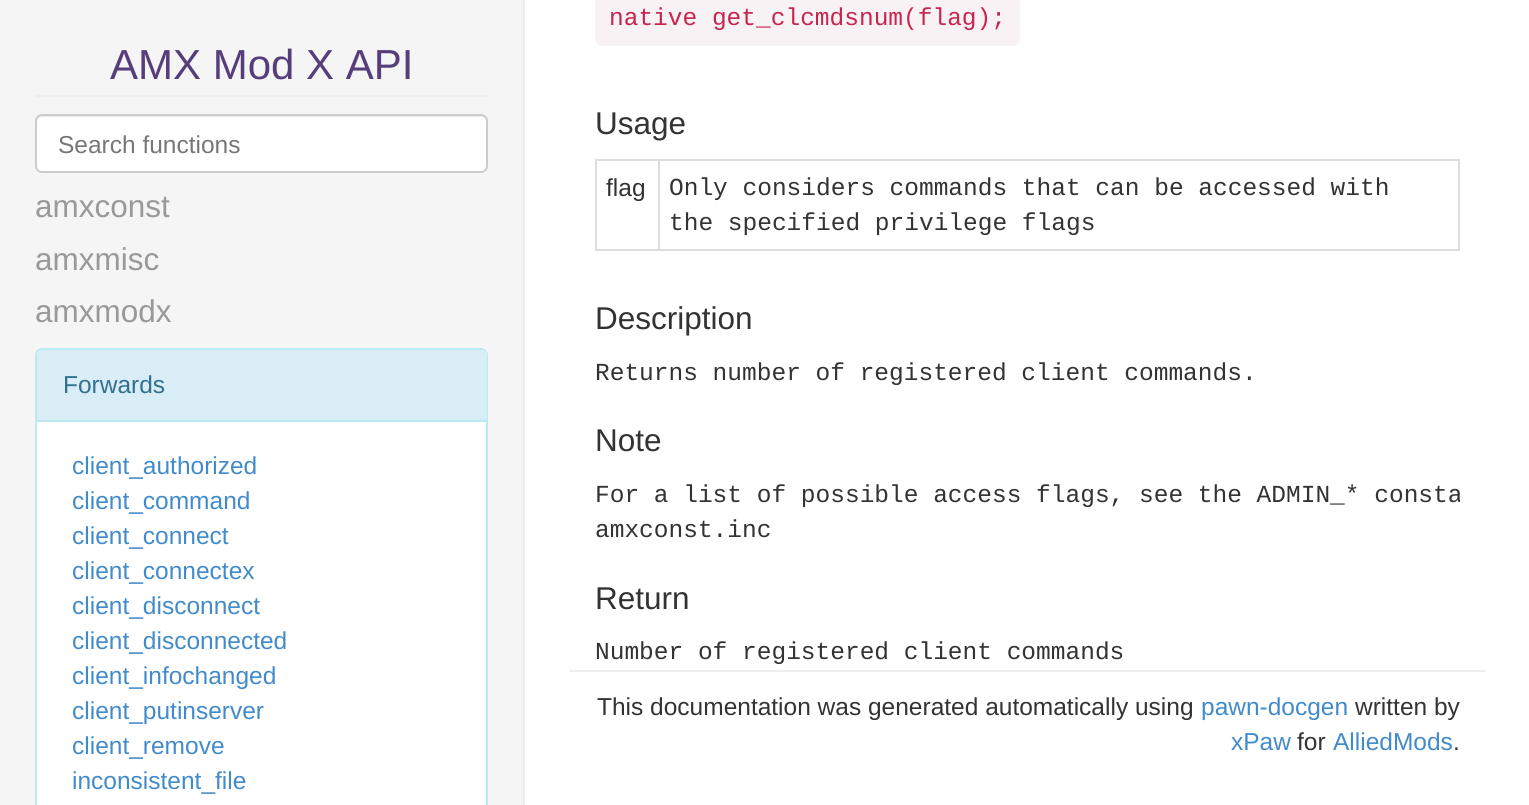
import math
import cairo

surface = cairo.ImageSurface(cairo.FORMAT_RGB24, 1529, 805)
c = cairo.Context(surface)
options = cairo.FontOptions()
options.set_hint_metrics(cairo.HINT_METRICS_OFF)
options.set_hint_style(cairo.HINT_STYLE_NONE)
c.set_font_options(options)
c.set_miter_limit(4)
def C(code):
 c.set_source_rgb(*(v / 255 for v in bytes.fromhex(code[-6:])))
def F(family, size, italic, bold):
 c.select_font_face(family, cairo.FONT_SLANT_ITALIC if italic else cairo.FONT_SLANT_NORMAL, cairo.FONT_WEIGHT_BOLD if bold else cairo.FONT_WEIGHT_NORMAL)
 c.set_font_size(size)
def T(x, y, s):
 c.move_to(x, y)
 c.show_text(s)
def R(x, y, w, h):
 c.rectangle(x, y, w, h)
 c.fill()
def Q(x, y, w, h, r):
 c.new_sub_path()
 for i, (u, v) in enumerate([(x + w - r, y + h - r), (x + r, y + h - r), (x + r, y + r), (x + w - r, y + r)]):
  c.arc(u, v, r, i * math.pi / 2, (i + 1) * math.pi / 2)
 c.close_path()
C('ffffff')
c.paint()
C('f5f5f5')
R(0,0,523,805)
C('eeeeee')
R(523,0,2,805)
R(35,95,453,2)
F('Liberation Sans',42,0,0)
C('563d7c')
T(110,79,'AMX Mod X API')
C('ffffff')
Q(35,114,453,59,7)
c.fill()
C('ececec')
c.new_path()
c.move_to(42,117)
c.line_to(481,117)
c.curve_to(484,117,486,120,486,122)
c.line_to(486,168)
c.line_to(485,171)
c.curve_to(486,170,487,168,487,167)
c.line_to(487,121)
c.curve_to(487,118,485,116,482,116)
c.line_to(42,116)
c.curve_to(39,116,37,118,37,121)
c.line_to(37,122)
c.curve_to(37,120,39,117,42,117)
c.close_path()
c.fill()
Q(36,115,451,57,6)
C('cccccc')
c.stroke()
F('Liberation Sans',24.5,0,0)
C('777777')
T(58,153,'Search functions')
F('Liberation Sans',31.5,0,0)
C('999999')
T(35,217,'amxconst')
T(35,270,'amxmisc')
T(35,322,'amxmodx')
C('ffffff')
c.new_path()
c.move_to(42,348)
c.line_to(481,348)
c.curve_to(485,348,488,351,488,355)
c.line_to(488,805)
c.line_to(35,805)
c.line_to(35,355)
c.curve_to(35,351,38,348,42,348)
c.close_path()
c.fill()
Q(36,349,451,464,6)
C('bce8f1')
c.stroke()
C('d9edf7')
c.new_path()
c.move_to(42,350)
c.line_to(482,350)
c.curve_to(485,350,487,352,487,355)
c.line_to(487,422)
c.line_to(37,422)
c.line_to(37,355)
c.curve_to(37,352,39,350,42,350)
c.close_path()
c.fill()
C('bce8f1')
R(37,420,450,2)
F('Liberation Sans',24.5,0,0)
C('31708f')
T(63,393,'Forwards')
C('428bca')
T(72,474,'client_authorized')
T(72,509,'client_command')
T(72,544,'client_connect')
T(72,579,'client_connectex')
T(72,614,'client_disconnect')
T(72,649,'client_disconnected')
T(72,684,'client_infochanged')
T(72,719,'client_putinserver')
T(72,754,'client_remove')
T(72,789,'inconsistent_file')
C('f9f2f4')
Q(595,-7,425,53,7)
c.fill()
F('Liberation Mono',24.5,0,0)
C('c7254e')
T(609,25,'native get_clcmdsnum(flag);')
F('Liberation Sans',31.5,0,0)
C('333333')
T(595,134,'Usage')
C('dddddd')
R(595,159,865,2)
R(1458,159,2,91)
R(595,249,865,2)
R(595,159,2,91)
F('Liberation Sans',24.5,0,0)
C('333333')
T(606,196,'flag')
C('dddddd')
R(658,159,2,91)
F('Liberation Mono',24.5,0,0)
C('333333')
T(669,195,'Only considers commands that can be accessed with')
T(669,230,'the specified privilege flags')
F('Liberation Sans',31.5,0,0)
T(595,329,'Description')
F('Liberation Mono',24.5,0,0)
T(595,380,'Returns number of registered client commands.')
F('Liberation Sans',31.5,0,0)
T(595,451,'Note')
c.save()
Q(595,478,865,70,7)
c.clip()
F('Liberation Mono',24.5,0,0)
T(595,502,'For a list of possible access flags, see the ADMIN_* consta')
c.restore()
F('Liberation Mono',24.5,0,0)
T(595,537,'amxconst.inc')
F('Liberation Sans',31.5,0,0)
T(595,609,'Return')
F('Liberation Mono',24.5,0,0)
T(595,659,'Number of registered client commands')
C('eeeeee')
R(569,670,917,2)
F('Liberation Sans',24.5,0,0)
C('333333')
T(597,715,'This documentation was generated automatically using')
C('428bca')
T(1201,715,'pawn-docgen')
C('333333')
T(1355,715,'written by')
C('428bca')
T(1231,750,'xPaw')
C('333333')
T(1297,750,'for')
C('428bca')
T(1333,750,'AlliedMods')
C('333333')
T(1453,750,'.')
surface.write_to_png('o.png')
